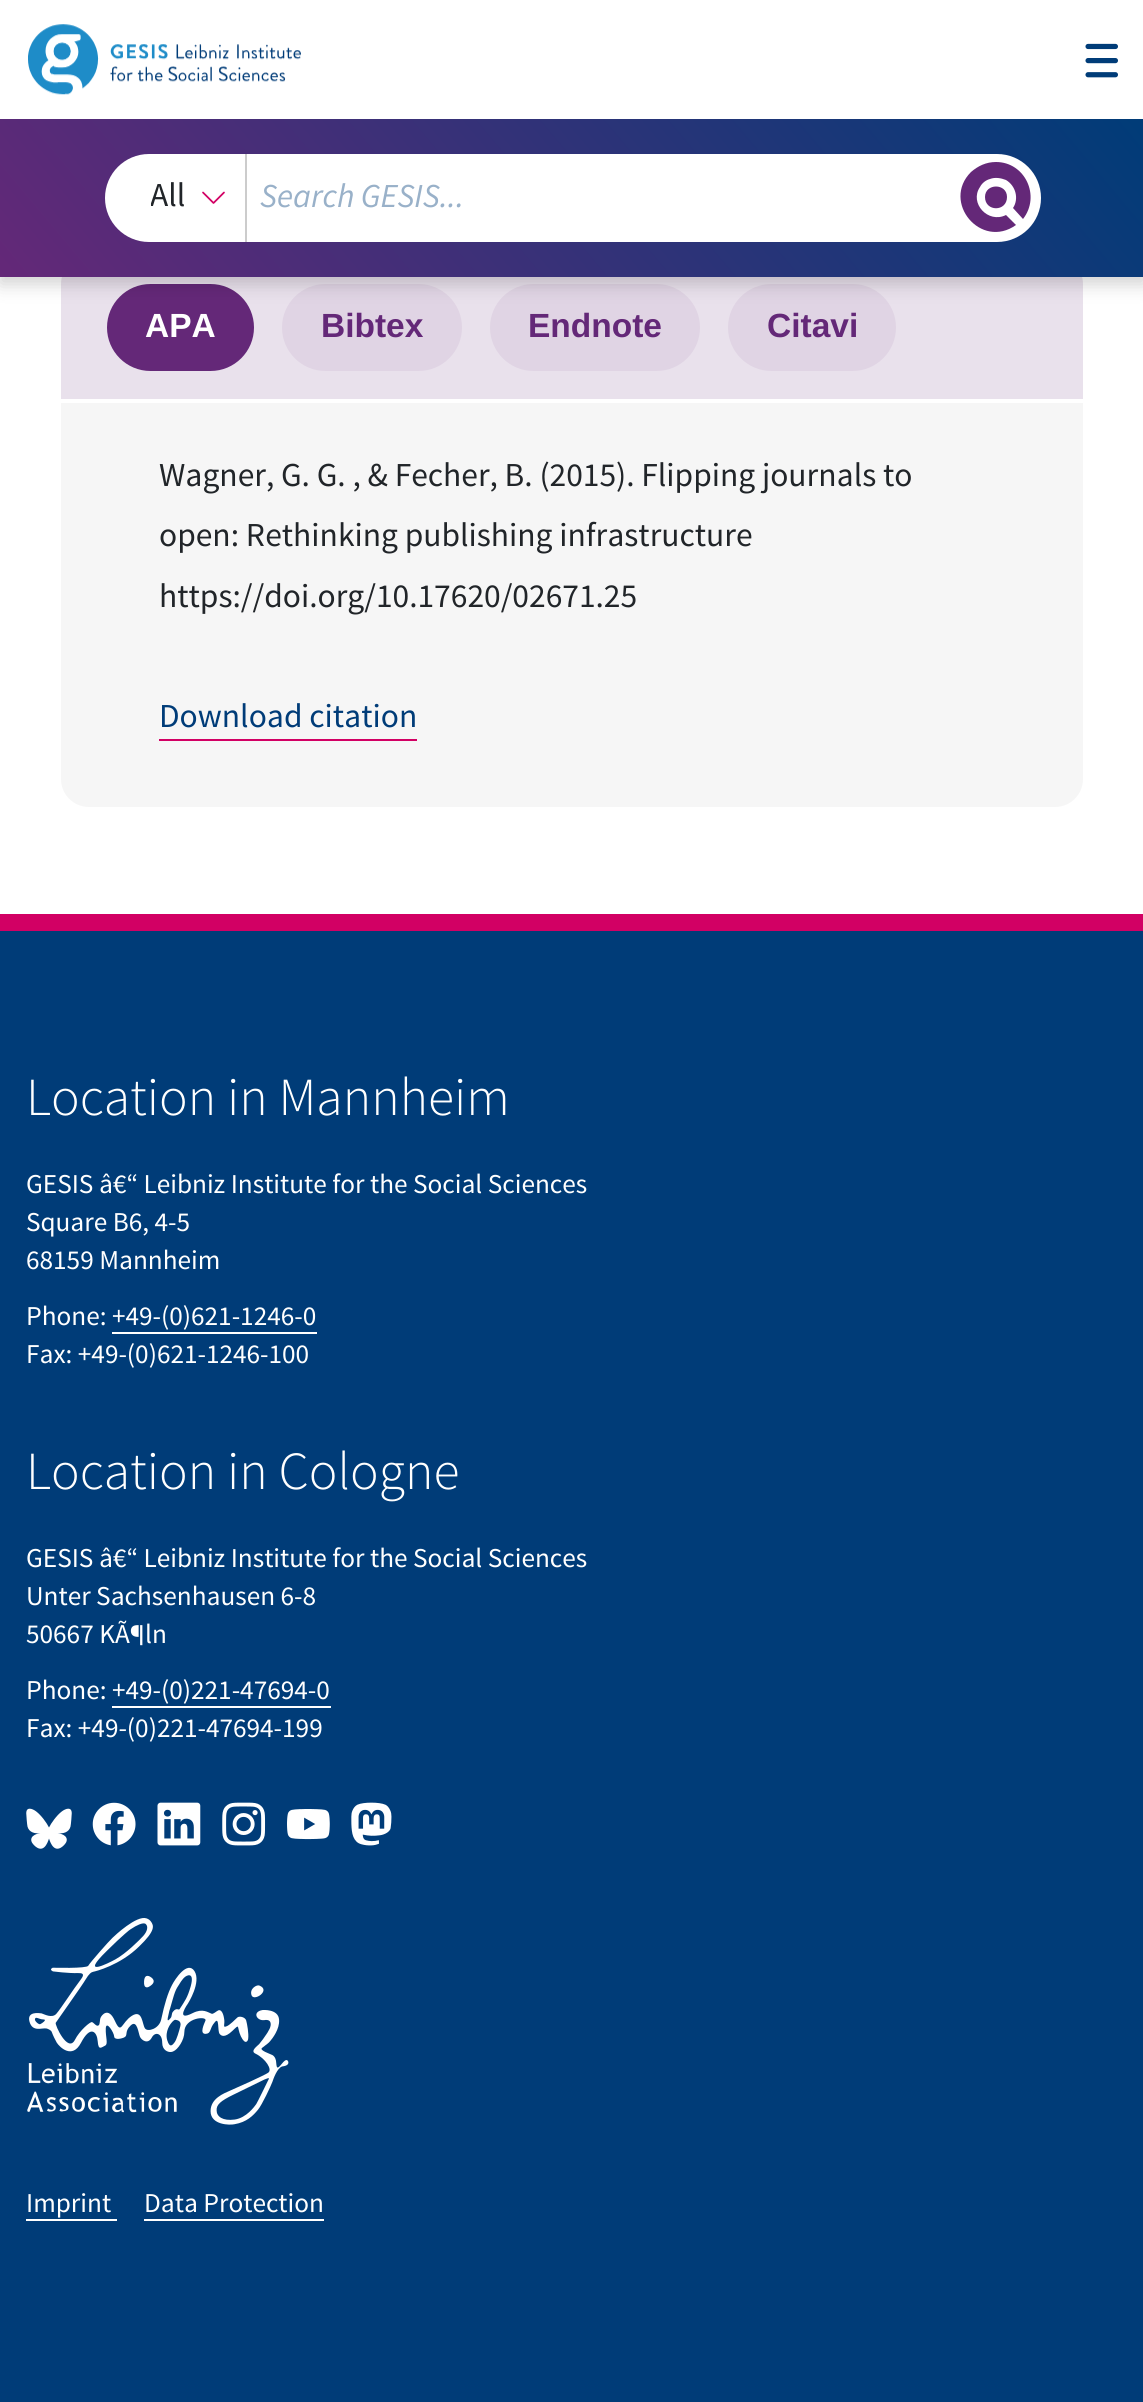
import math
import cairo

surface = cairo.ImageSurface(cairo.FORMAT_RGB24, 1143, 2402)
c = cairo.Context(surface)
options = cairo.FontOptions()
options.set_hint_metrics(cairo.HINT_METRICS_OFF)
options.set_hint_style(cairo.HINT_STYLE_NONE)
c.set_font_options(options)
c.set_miter_limit(4)
def C(code):
 c.set_source_rgb(*(v / 255 for v in bytes.fromhex(code[-6:])))
def F(family, size, italic, bold):
 c.select_font_face(family, cairo.FONT_SLANT_ITALIC if italic else cairo.FONT_SLANT_NORMAL, cairo.FONT_WEIGHT_BOLD if bold else cairo.FONT_WEIGHT_NORMAL)
 c.set_font_size(size)
def T(x, y, s):
 c.move_to(x, y)
 c.show_text(s)
def R(x, y, w, h):
 c.rectangle(x, y, w, h)
 c.fill()
def Q(x, y, w, h, r):
 c.new_sub_path()
 for i, (u, v) in enumerate([(x + w - r, y + h - r), (x + r, y + h - r), (x + r, y + r), (x + w - r, y + r)]):
  c.arc(u, v, r, i * math.pi / 2, (i + 1) * math.pi / 2)
 c.close_path()
def S(x, y, w, h, r, blur, alpha):
 c.push_group_with_content(cairo.CONTENT_ALPHA)
 c.set_operator(cairo.OPERATOR_SOURCE)
 for i in range(15, -16, -2):
  e = blur * i / 6
  if min(w, h) + 2 * e > 0:
   c.set_source_rgba(0, 0, 0, alpha * math.erfc((i - 1) / 8.5) / 2)
   Q(x - e, y - e, w + 2 * e, h + 2 * e, max(0, min(r + e + blur * .6, min(w, h) / 2 + e)))
   c.fill()
 c.mask(c.pop_group())
def I(path, x, y, w, h):
 c.save()
 c.set_source_surface(cairo.ImageSurface.create_from_png(path), x, y)
 c.rectangle(x, y, w, h)
 c.fill()
 c.restore()
C('ffffff')
c.paint()
C('e9e1ec')
c.new_path()
c.move_to(89,256)
c.line_to(1055,256)
c.curve_to(1070.5,256,1083,268.5,1083,284)
c.line_to(1083,399)
c.line_to(61,399)
c.line_to(61,284)
c.curve_to(61,268.5,73.5,256,89,256)
c.close_path()
c.fill()
C('642878')
Q(109,286,143,83,41.5)
c.fill_preserve()
c.set_line_width(4)
c.stroke()
C('e0d4e4')
Q(284,286,176,83,41.5)
c.fill_preserve()
c.stroke()
Q(492,286,206,83,41.5)
c.fill_preserve()
c.stroke()
Q(730,286,164,83,41.5)
c.fill_preserve()
c.stroke()
C('000000')
S(0,7,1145,277,0,9,.18)
C('ffffff')
R(0,0,1143,119)
I('1.png',28,24,273,71)
I('2.png',1085,43,33,35)
gradient = cairo.LinearGradient(198,512,947,-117)
gradient.add_color_stop_rgba(0,0.392,0.157,0.471,1)
gradient.add_color_stop_rgba(1,0,0.235,0.471,1)
c.set_source(gradient)
R(0,119,1143,158)
C('ffffff')
Q(105,154,936,88,44)
c.fill()
I('3.png',202,191,23,13)
C('cccccc')
R(245,154,2,88)
c.save()
c.rectangle(151,168,36,60)
c.clip()
F('Source Sans Pro',33.5,0,0)
C('212529')
T(150,206,'All')
c.restore()
F('Source Sans Pro',33.5,1,0)
C('99b1c9')
T(260,207,'Search GESIS...')
C('642878')
c.new_path()
c.move_to(1007,197)
c.curve_to(1007,212,985,212,985,197)
c.curve_to(985,183,1007,183,1007,197)
c.close_path()
c.move_to(996,162)
c.curve_to(986,162,978,166,971,172)
c.curve_to(941,202,981,250,1016,225)
c.line_to(1006,215)
c.curve_to(988,224,969,203,980,187)
c.curve_to(982,183,986,180,990,179)
c.curve_to(995,177,1001,178,1006,180)
c.curve_to(1016,186,1019,199,1013,208)
c.line_to(1023,219)
c.curve_to(1041,196,1025,162,996,162)
c.close_path()
c.move_to(1023,219)
c.line_to(1013,208)
c.close_path()
c.fill()
F('Liberation Sans',33.5,0,1)
C('ffffff')
T(145,337,'APA')
C('642878')
T(321,337,'Bibtex')
T(528,337,'Endnote')
T(767,337,'Citavi')
C('f6f6f6')
c.new_path()
c.move_to(61,403)
c.line_to(1083,403)
c.line_to(1083,779)
c.curve_to(1083,794.5,1070.5,807,1055,807)
c.line_to(89,807)
c.curve_to(73.5,807,61,794.5,61,779)
c.close_path()
c.fill()
F('Source Sans Pro',33.5,0,0)
C('212529')
T(159,486,'Wagner, G. G. , & Fecher, B. (2015). Flipping journals to')
T(159,546,'open: Rethinking publishing infrastructure')
T(159,607,'https://doi.org/10.17620/02671.25')
C('003c78')
T(159,727,'Download citation')
C('d20064')
R(159,739,258,2)
C('003c78')
R(0,931,1143,1471)
C('d20064')
R(0,914,1143,17)
F('Source Sans Pro Light',53.6,0,0)
C('ffffff')
T(26,1115,'Location in Mannheim')
F('Source Sans Pro',27.25,0,0)
T(26,1193,'GESIS â€“ Leibniz Institute for the Social Sciences')
T(26,1231,'Square B6, 4-5')
T(26,1269,'68159 Mannheim')
T(26,1325,'Phone: +49-(0)621-1246-0')
R(112,1332,205,2)
T(26,1363,'Fax: +49-(0)621-1246-100')
F('Source Sans Pro Light',53.6,0,0)
T(26,1489,'Location in Cologne')
F('Source Sans Pro',27.25,0,0)
T(26,1567,'GESIS â€“ Leibniz Institute for the Social Sciences')
T(26,1605,'Unter Sachsenhausen 6-8')
T(26,1643,'50667 KÃ¶ln')
T(26,1699,'Phone: +49-(0)221-47694-0')
R(112,1706,219,2)
T(26,1737,'Fax: +49-(0)221-47694-199')
I('4.png',26,1808,46,41)
I('5.png',92,1802,44,44)
I('6.png',157,1802,44,44)
I('7.png',222,1802,44,44)
I('8.png',287,1809,43,31)
I('9.png',351,1802,41,44)
I('10.png',27,1918,262,207)
T(26,2212,'Imprint')
R(26,2219,91,2)
T(144,2212,'Data Protection')
R(144,2219,180,2)
surface.write_to_png('o.png')
